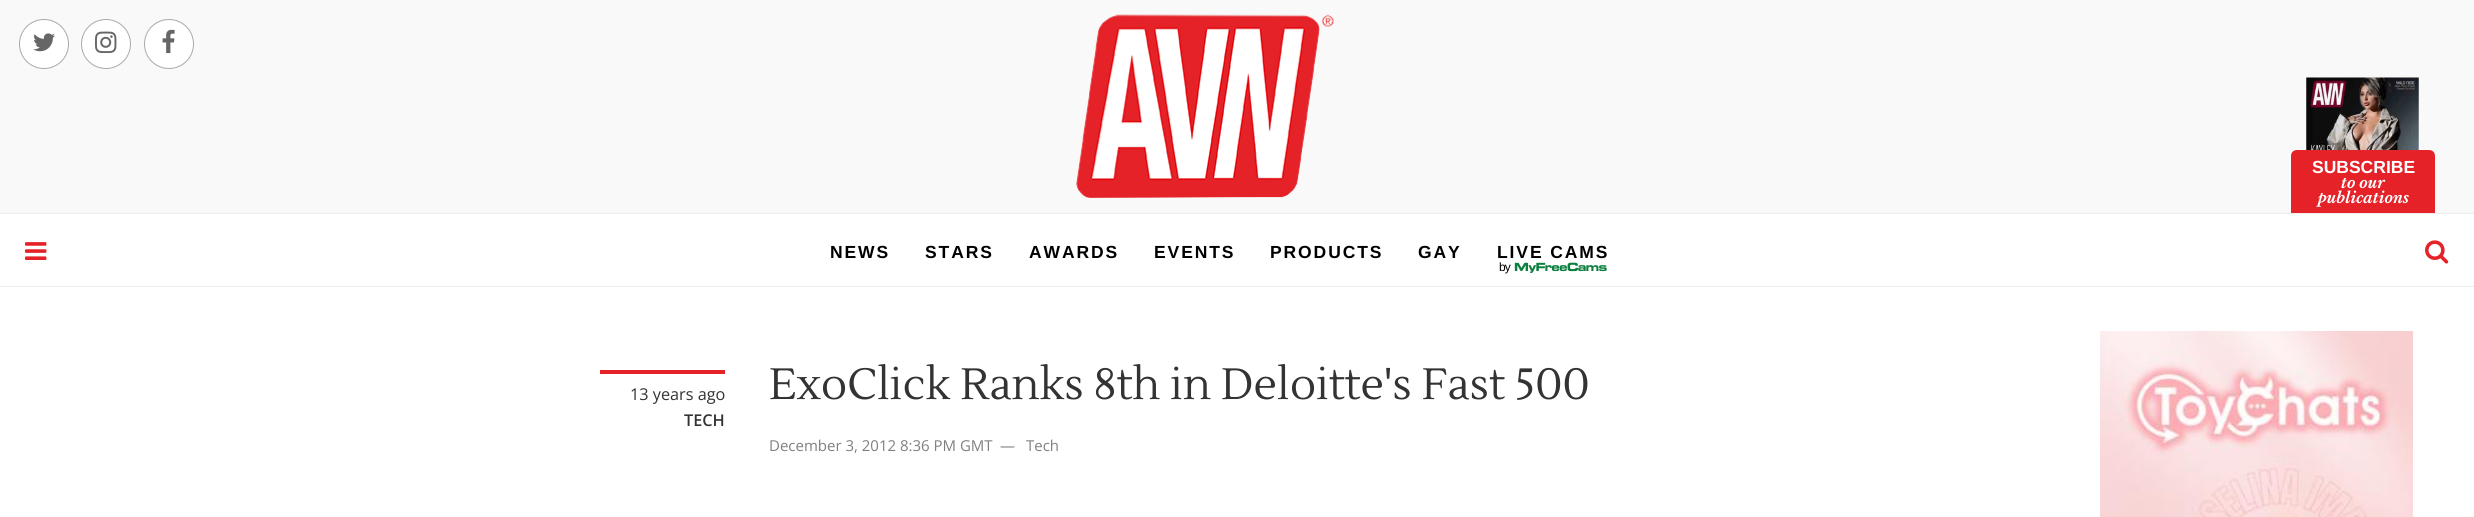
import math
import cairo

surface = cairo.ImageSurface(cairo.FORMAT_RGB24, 2474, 517)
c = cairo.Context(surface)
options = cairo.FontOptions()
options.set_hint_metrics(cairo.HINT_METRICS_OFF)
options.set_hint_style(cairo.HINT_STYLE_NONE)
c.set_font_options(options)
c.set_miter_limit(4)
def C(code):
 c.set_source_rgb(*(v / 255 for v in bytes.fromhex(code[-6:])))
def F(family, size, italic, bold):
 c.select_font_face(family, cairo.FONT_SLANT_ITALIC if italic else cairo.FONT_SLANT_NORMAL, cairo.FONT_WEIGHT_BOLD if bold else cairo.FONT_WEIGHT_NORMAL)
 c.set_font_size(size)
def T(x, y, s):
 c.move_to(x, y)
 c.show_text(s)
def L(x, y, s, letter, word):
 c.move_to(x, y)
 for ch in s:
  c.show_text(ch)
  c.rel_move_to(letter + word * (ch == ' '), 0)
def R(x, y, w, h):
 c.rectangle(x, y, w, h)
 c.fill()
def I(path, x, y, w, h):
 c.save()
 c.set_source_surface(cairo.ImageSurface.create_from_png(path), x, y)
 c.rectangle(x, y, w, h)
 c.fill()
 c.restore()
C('ffffff')
c.paint()
C('f9f9f9')
R(0,0,2474,213)
C('ffffff')
c.arc(44,44,24.5,0,2 * math.pi)
c.fill_preserve()
C('aaaaaa')
c.set_line_width(1)
c.stroke()
I('1.png',33,33,22,19)
C('ffffff')
c.arc(106,44,24.5,0,2 * math.pi)
c.fill_preserve()
C('aaaaaa')
c.stroke()
I('2.png',95,31,22,22)
C('ffffff')
c.arc(169,44,24.5,0,2 * math.pi)
c.fill_preserve()
C('aaaaaa')
c.stroke()
I('3.png',162,29,13,25)
I('4.png',1076,14,258,184)
I('5.png',2306,77,113,73)
C('e42228')
c.new_path()
c.move_to(2297,150)
c.line_to(2429,150)
c.curve_to(2432.5,150,2435,152.5,2435,156)
c.line_to(2435,213)
c.line_to(2291,213)
c.line_to(2291,156)
c.curve_to(2291,152.5,2293.5,150,2297,150)
c.close_path()
c.fill()
F('Liberation Sans',17.5,0,1)
C('ffffff')
T(2312,173,'SUBSCRIBE')
F('Libre Baskerville',15,1,1)
T(2341,188,'to our')
T(2318,203,'publications')
C('ededed')
R(0,213,2474,1)
R(0,286,2474,1)
I('6.png',25,242,22,18)
F('Liberation Sans',17.5,0,1)
C('000000')
L(830,258,'NEWS',1.9,0)
L(925,258,'STARS',1.9,0)
L(1029,258,'AWARDS',1.9,0)
L(1154,258,'EVENTS',1.9,0)
L(1270,258,'PRODUCTS',1.9,0)
L(1418,258,'GAY',1.9,0)
L(1497,258,'LIVE CAMS',1.9,0)
F('Liberation Sans',12,0,0)
L(1499,271,'by',-1,0)
F('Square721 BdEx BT',11.25,0,1)
C('0b7f3e')
L(1514,271,'MyFreeCams',-.75,0)
I('7.png',2425,240,24,24)
C('e42228')
R(600,370,125,4)
F('Open Sans',16.25,0,0)
C('333333')
T(630,400,'13 years ago')
F('Open Sans SemiBold',16.25,0,0)
T(684,426,'TECH')
F('Lustria',43.75,0,0)
T(769,399,'ExoClick Ranks 8th in Deloitte\'s Fast 500')
F('Open Sans',15,0,0)
C('808080')
T(769,451,'December 3, 2012 8:36 PM GMT')
T(1000,451,'—')
T(1026,451,'Tech')
I('8.png',2100,331,313,186)
surface.write_to_png('o.png')
